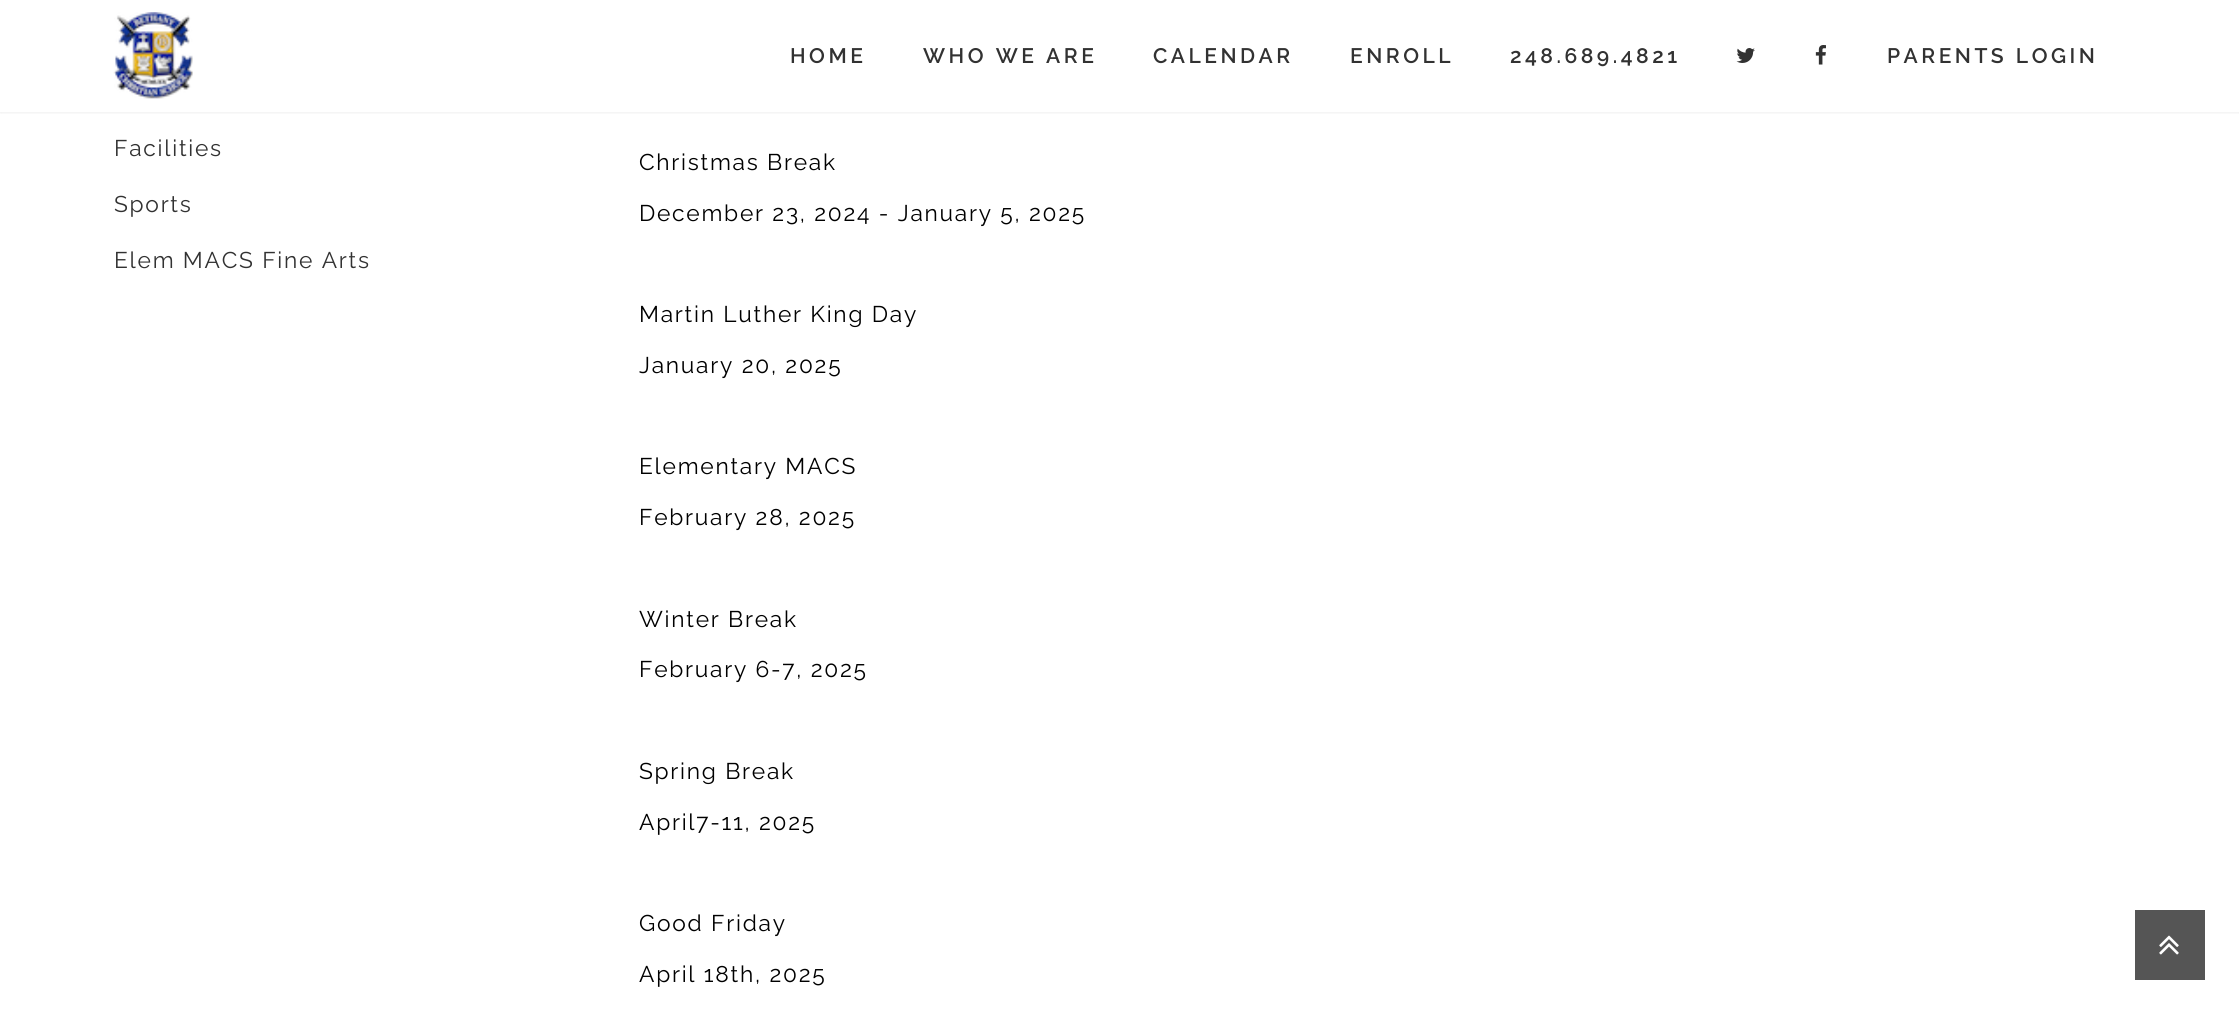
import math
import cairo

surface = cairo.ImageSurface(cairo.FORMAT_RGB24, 2239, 1014)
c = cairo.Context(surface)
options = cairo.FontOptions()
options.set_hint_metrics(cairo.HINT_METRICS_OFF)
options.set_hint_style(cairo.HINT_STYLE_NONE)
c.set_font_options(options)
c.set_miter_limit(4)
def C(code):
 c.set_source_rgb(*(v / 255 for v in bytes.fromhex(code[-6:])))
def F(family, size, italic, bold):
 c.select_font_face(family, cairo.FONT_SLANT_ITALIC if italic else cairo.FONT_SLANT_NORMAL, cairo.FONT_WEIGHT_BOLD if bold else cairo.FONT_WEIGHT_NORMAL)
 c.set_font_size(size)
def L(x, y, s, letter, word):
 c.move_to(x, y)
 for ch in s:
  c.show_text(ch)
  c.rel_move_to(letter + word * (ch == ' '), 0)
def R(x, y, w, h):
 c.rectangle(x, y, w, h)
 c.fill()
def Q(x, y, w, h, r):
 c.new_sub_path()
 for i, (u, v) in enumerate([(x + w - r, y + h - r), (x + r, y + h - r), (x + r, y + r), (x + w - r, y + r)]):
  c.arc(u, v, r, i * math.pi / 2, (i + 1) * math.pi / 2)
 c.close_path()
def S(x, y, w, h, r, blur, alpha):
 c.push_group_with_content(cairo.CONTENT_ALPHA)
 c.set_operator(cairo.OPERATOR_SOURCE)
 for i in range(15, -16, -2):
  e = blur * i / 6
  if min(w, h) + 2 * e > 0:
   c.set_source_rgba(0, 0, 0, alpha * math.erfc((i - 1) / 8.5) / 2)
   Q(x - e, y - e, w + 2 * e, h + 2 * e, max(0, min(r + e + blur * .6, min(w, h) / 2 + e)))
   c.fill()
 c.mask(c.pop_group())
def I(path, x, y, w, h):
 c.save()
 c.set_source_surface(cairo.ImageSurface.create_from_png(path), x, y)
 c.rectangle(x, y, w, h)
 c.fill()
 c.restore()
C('ffffff')
c.paint()
c.save()
c.rectangle(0,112,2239,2)
c.clip()
C('000000')
S(0,0,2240,112,0,2.5,.1)
c.restore()
I('1.png',113,12,80,87)
F('Raleway SemiBold',21,0,0)
C('323232')
L(790,63,'HOME',3.5,0)
L(923,63,'WHO WE ARE',3.5,0)
L(1153,63,'CALENDAR',3.5,0)
L(1350,63,'ENROLL',3.5,0)
L(1510,63,'248.689.4821',3.5,0)
I('2.png',1736,48,19,15)
I('3.png',1815,45,11,20)
L(1887,63,'PARENTS LOGIN',3.5,0)
F('Raleway',22.75,0,0)
L(114,156,'Facilities',1.75,0)
L(114,212,'Sports',1.75,0)
L(114,268,'Elem MACS Fine Arts',1.75,0)
C('000000')
L(639,170,'Christmas Break',1.75,0)
L(639,221,'December 23, 2024 - January 5, 2025',1.75,0)
L(639,322,'Martin Luther King Day',1.75,0)
L(639,373,'January 20, 2025',1.75,0)
L(639,474,'Elementary MACS',1.75,0)
L(639,525,'February 28, 2025',1.75,0)
L(639,627,'Winter Break',1.75,0)
L(639,677,'February 6-7, 2025',1.75,0)
L(639,779,'Spring Break',1.75,0)
L(639,830,'April7-11, 2025',1.75,0)
L(639,931,'Good Friday',1.75,0)
L(639,982,'April 18th, 2025',1.75,0)
C('555555')
R(2135,910,70,70)
I('4.png',2159,935,20,20)
surface.write_to_png('o.png')
